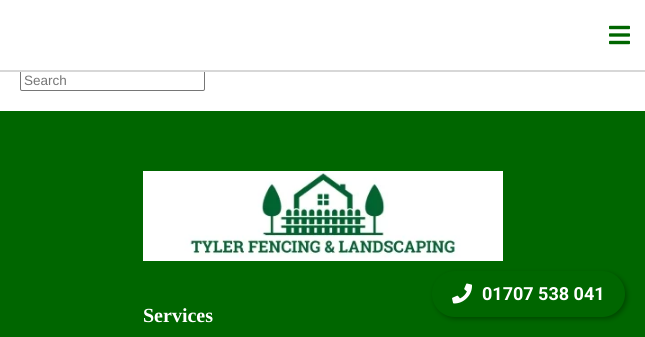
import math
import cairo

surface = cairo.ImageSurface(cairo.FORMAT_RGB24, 645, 337)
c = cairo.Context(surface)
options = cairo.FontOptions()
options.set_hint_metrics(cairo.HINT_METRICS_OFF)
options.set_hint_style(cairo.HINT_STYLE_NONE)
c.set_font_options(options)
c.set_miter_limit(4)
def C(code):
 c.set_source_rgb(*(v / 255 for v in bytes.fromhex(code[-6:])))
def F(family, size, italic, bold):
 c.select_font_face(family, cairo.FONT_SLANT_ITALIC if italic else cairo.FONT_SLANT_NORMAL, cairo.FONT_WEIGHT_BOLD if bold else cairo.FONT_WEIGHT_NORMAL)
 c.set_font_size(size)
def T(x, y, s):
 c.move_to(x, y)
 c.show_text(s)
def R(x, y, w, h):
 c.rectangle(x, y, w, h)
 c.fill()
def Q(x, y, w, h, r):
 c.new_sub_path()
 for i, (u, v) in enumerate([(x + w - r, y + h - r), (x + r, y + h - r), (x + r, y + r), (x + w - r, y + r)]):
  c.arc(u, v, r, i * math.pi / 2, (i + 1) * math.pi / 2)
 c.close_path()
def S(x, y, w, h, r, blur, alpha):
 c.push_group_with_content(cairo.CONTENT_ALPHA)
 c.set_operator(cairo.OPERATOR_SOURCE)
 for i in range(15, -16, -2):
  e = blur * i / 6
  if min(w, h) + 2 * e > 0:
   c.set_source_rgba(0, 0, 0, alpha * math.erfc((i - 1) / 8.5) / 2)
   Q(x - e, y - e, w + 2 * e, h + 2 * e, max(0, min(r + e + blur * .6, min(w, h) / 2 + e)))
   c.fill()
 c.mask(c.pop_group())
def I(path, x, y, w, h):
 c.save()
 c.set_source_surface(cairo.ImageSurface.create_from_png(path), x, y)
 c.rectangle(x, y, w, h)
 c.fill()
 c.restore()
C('ffffff')
c.paint()
Q(20.5,70.5,184,20,1.5)
C('767676')
c.set_line_width(1)
c.stroke()
C('d7d7d7')
R(0,70,645,2)
I('1.png',609,25,21,20)
F('Liberation Sans',13.5,0,0)
C('757575')
T(24,85,'Search')
C('006600')
R(0,111,645,226)
C('000000')
S(434,273,193,46,23,2.5,.3)
C('006600')
Q(432,271,193,46,23)
c.fill()
I('2.png',452,283,20,21)
F('Roboto',18,0,1)
C('ffffff')
T(482,300,'01707 538 041')
I('3.png',143,171,360,90)
F('Liberation Serif',20,0,1)
T(143,322,'Services')
surface.write_to_png('o.png')
